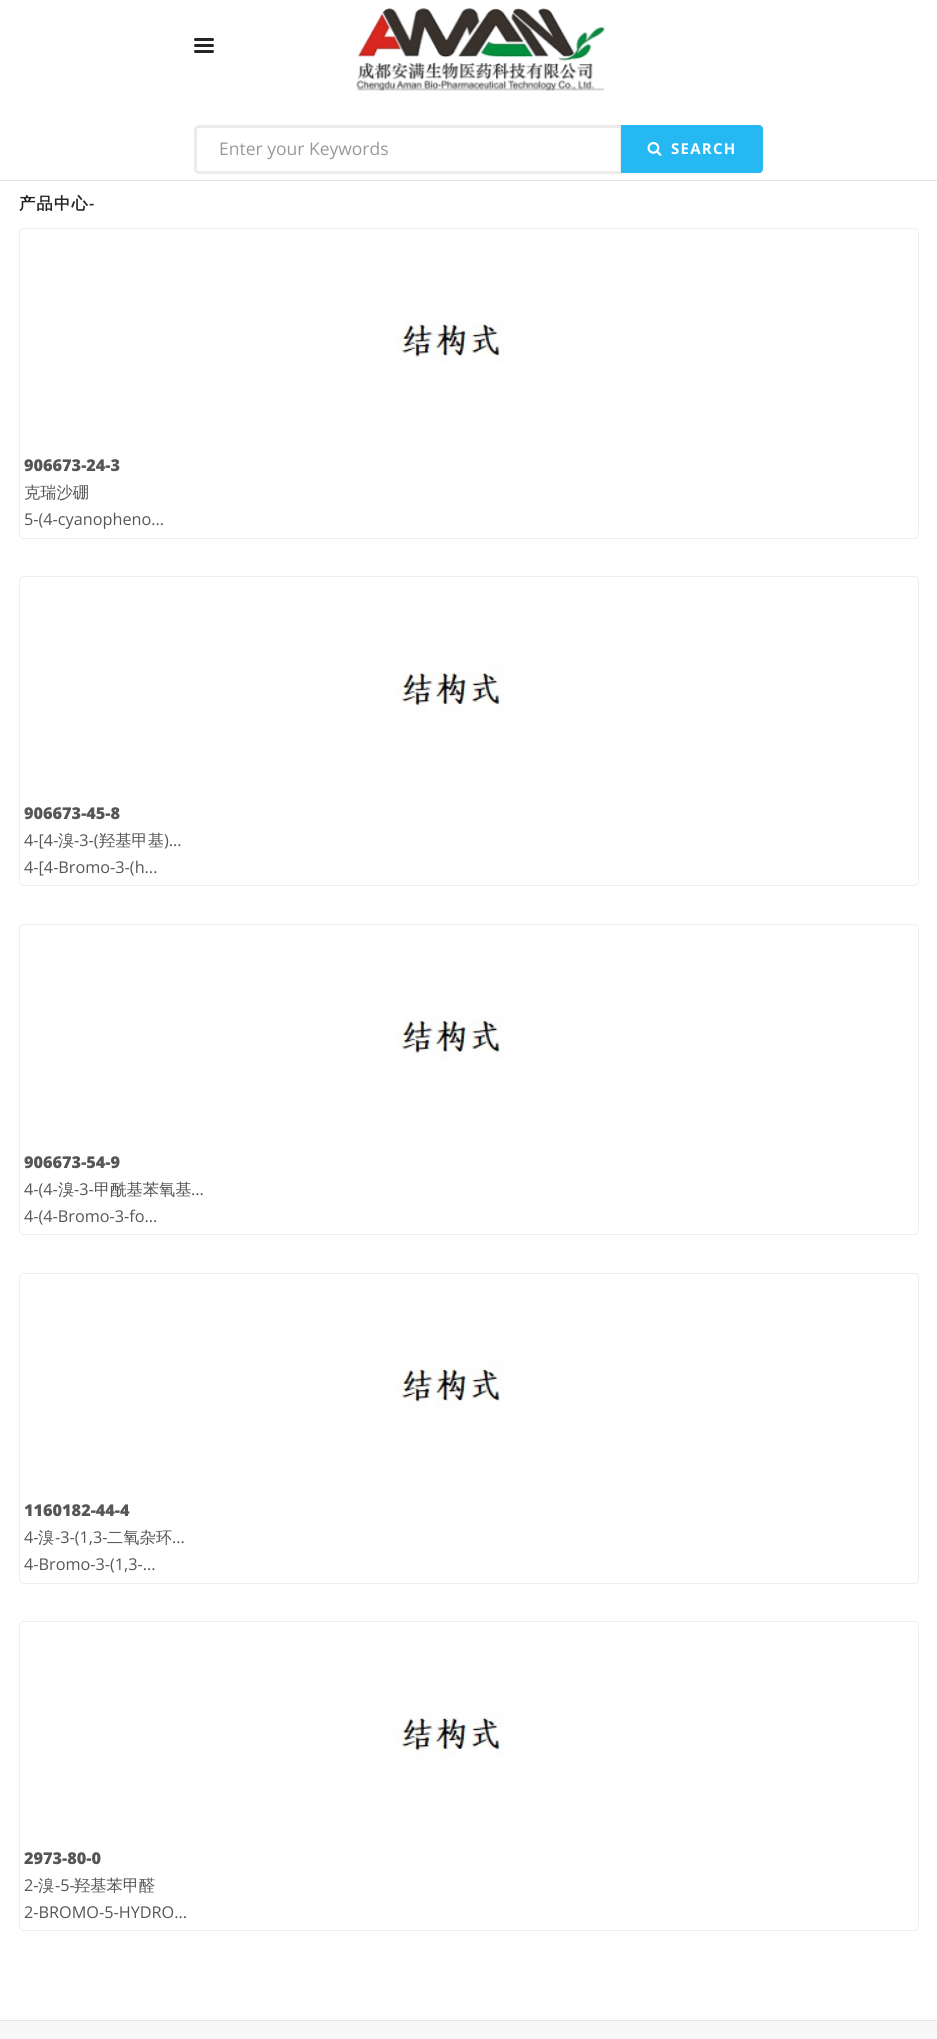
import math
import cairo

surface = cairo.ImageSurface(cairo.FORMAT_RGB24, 937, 2039)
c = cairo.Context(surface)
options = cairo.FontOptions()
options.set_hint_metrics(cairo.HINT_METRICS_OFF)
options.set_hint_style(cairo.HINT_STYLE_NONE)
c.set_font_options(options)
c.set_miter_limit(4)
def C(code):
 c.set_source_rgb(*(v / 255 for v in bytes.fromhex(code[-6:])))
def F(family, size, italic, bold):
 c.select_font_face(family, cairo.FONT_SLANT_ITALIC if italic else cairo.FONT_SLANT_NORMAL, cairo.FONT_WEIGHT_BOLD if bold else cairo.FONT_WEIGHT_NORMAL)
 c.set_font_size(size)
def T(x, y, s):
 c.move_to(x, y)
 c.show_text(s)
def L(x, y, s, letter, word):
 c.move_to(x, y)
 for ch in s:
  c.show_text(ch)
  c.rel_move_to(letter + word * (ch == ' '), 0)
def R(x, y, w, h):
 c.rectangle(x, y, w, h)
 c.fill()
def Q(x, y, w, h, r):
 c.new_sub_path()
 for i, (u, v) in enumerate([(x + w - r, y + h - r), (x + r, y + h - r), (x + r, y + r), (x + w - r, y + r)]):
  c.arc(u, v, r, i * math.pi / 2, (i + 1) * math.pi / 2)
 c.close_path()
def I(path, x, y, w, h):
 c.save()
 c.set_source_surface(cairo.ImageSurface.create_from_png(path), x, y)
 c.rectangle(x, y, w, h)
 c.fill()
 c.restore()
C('ffffff')
c.paint()
C('e3e3e3')
R(0,180,937,1)
C('252525')
Q(194,44,20,3,1.5)
c.fill()
Q(194,38,20,3,1.5)
c.fill()
Q(194,50,20,3,1.5)
c.fill()
I('1.png',356,8,249,83)
c.new_path()
c.move_to(199,126.5)
c.line_to(621.5,126.5)
c.line_to(621.5,172.5)
c.line_to(199,172.5)
c.curve_to(197,172.5,195.5,171,195.5,169)
c.line_to(195.5,130)
c.curve_to(195.5,128,197,126.5,199,126.5)
c.close_path()
C('ebebeb')
c.set_line_width(3)
c.stroke()
F('Open Sans',17.5,0,0)
C('999999')
T(219,155,'Enter your Keywords')
C('26b8f3')
c.new_path()
c.move_to(621.5,125.5)
c.line_to(759,125.5)
c.curve_to(761,125.5,762.5,127,762.5,129)
c.line_to(762.5,169)
c.curve_to(762.5,171,761,172.5,759,172.5)
c.line_to(621.5,172.5)
c.close_path()
c.fill_preserve()
c.set_line_width(1)
c.stroke()
I('2.png',647,142,15,14)
F('Open Sans',15,0,1)
C('ffffff')
L(671,154,'SEARCH',1.25,0)
F('WenQuanYi Zen Hei',16.25,0,1)
C('252525')
L(19,209,'产品中心',1.25,0)
F('Open Sans SemiBold',16.25,0,0)
L(89,209,'-',1.25,0)
Q(19.5,228.5,899,310,4.5)
C('eeeeee')
c.stroke()
I('3.png',394,314,111,59)
F('Open Sans ExtraBold',16.25,0,0)
C('565656')
T(24,471,'906673-24-3')
F('WenQuanYi Zen Hei Medium',16.25,0,0)
T(24,498,'克瑞沙硼')
F('Open Sans',16.25,0,0)
T(24,525,'5-(4-cyanopheno...')
Q(19.5,576.5,899,309,4.5)
C('eeeeee')
c.stroke()
I('4.png',394,663,111,59)
F('Open Sans ExtraBold',16.25,0,0)
C('565656')
T(24,819,'906673-45-8')
F('Open Sans',16.25,0,0)
T(24,846,'4-[4-')
F('WenQuanYi Zen Hei Medium',16.25,0,0)
T(58,846,'溴')
F('Open Sans',16.25,0,0)
T(74,846,'-3-(')
F('WenQuanYi Zen Hei Medium',16.25,0,0)
T(99,846,'羟基甲基')
F('Open Sans',16.25,0,0)
T(164,846,')...')
T(24,873,'4-[4-Bromo-3-(h...')
Q(19.5,924.5,899,310,4.5)
C('eeeeee')
c.stroke()
I('5.png',394,1010,111,59)
F('Open Sans ExtraBold',16.25,0,0)
C('565656')
T(24,1168,'906673-54-9')
F('Open Sans',16.25,0,0)
T(24,1195,'4-(4-')
F('WenQuanYi Zen Hei Medium',16.25,0,0)
T(58,1195,'溴')
F('Open Sans',16.25,0,0)
T(74,1195,'-3-')
F('WenQuanYi Zen Hei Medium',16.25,0,0)
T(94,1195,'甲酰基苯氧基')
F('Open Sans',16.25,0,0)
T(191,1195,'...')
T(24,1222,'4-(4-Bromo-3-fo...')
Q(19.5,1273.5,899,310,4.5)
C('eeeeee')
c.stroke()
I('3.png',394,1359,111,59)
F('Open Sans ExtraBold',16.25,0,0)
C('565656')
T(24,1516,'1160182-44-4')
F('Open Sans',16.25,0,0)
T(24,1543,'4-')
F('WenQuanYi Zen Hei Medium',16.25,0,0)
T(38,1543,'溴')
F('Open Sans',16.25,0,0)
T(55,1543,'-3-(1,3-')
F('WenQuanYi Zen Hei Medium',16.25,0,0)
T(107,1543,'二氧杂环')
F('Open Sans',16.25,0,0)
T(172,1543,'...')
T(24,1570,'4-Bromo-3-(1,3-...')
Q(19.5,1621.5,899,309,4.5)
C('eeeeee')
c.stroke()
I('4.png',394,1708,111,59)
F('Open Sans ExtraBold',16.25,0,0)
C('565656')
T(24,1864,'2973-80-0')
F('Open Sans',16.25,0,0)
T(24,1891,'2-')
F('WenQuanYi Zen Hei Medium',16.25,0,0)
T(38,1891,'溴')
F('Open Sans',16.25,0,0)
T(55,1891,'-5-')
F('WenQuanYi Zen Hei Medium',16.25,0,0)
T(74,1891,'羟基苯甲醛')
F('Open Sans',16.25,0,0)
T(24,1918,'2-BROMO-5-HYDRO...')
C('f7f7f7')
R(0,2021,937,18)
C('e5e5e5')
R(0,2020,937,1)
surface.write_to_png('o.png')
